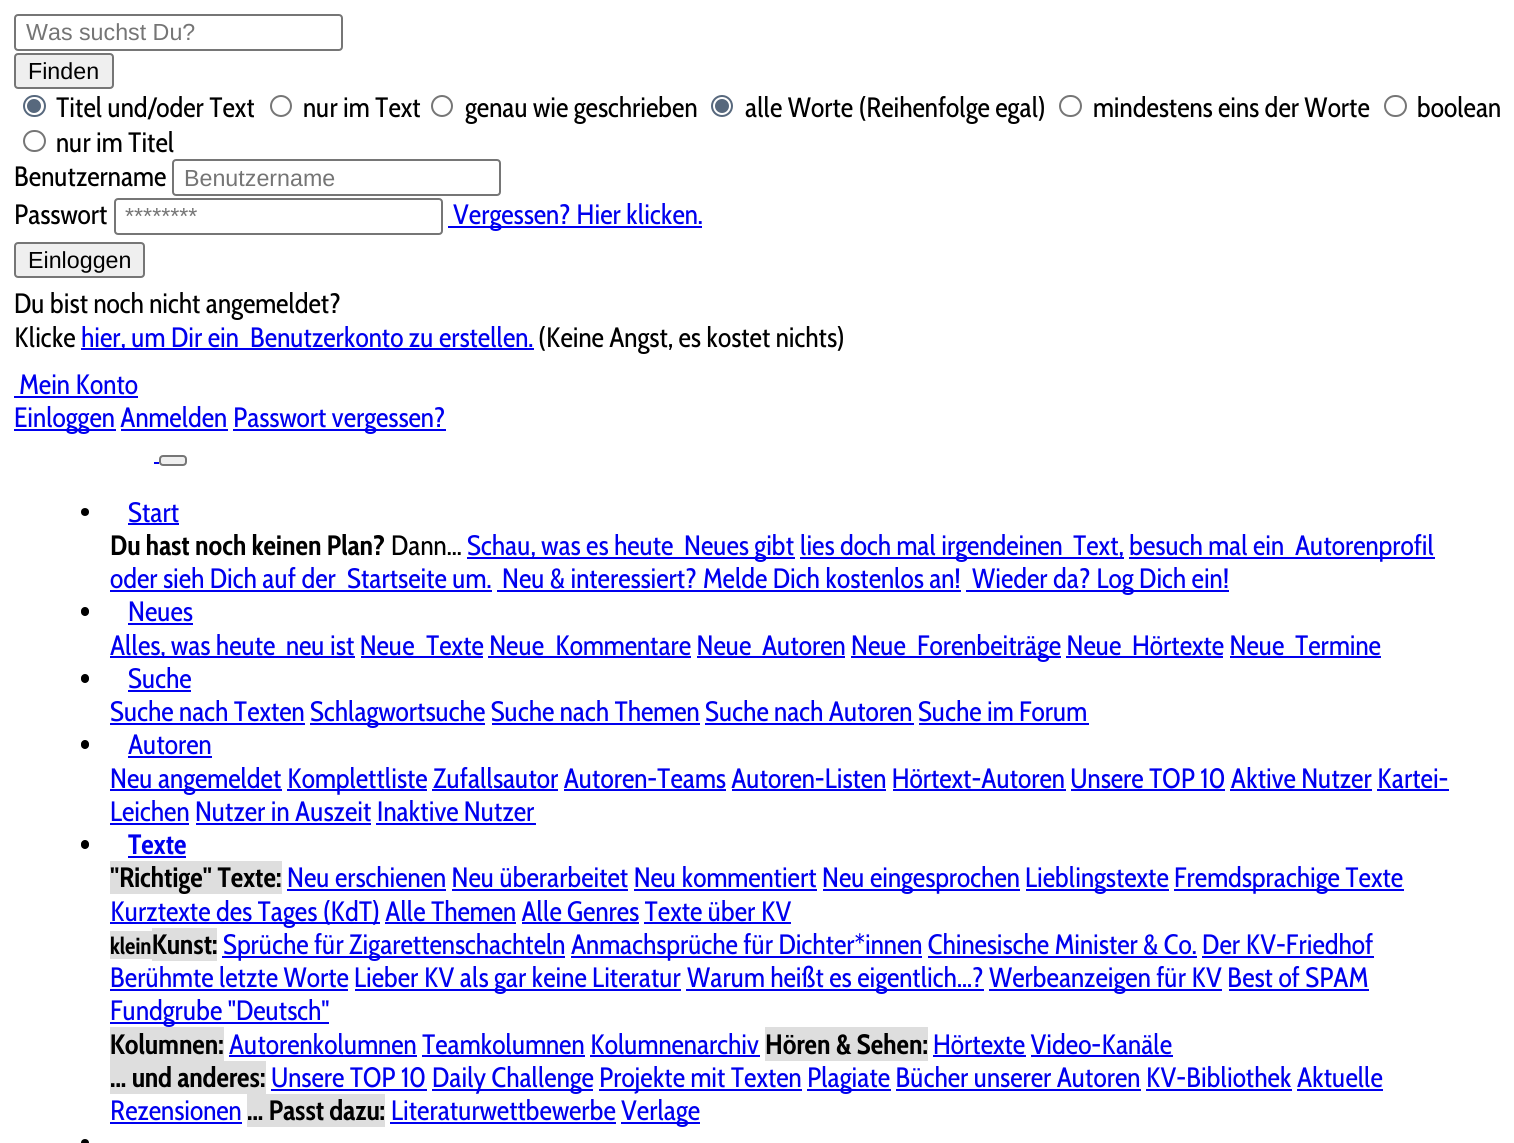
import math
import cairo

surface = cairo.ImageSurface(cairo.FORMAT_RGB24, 1514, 1143)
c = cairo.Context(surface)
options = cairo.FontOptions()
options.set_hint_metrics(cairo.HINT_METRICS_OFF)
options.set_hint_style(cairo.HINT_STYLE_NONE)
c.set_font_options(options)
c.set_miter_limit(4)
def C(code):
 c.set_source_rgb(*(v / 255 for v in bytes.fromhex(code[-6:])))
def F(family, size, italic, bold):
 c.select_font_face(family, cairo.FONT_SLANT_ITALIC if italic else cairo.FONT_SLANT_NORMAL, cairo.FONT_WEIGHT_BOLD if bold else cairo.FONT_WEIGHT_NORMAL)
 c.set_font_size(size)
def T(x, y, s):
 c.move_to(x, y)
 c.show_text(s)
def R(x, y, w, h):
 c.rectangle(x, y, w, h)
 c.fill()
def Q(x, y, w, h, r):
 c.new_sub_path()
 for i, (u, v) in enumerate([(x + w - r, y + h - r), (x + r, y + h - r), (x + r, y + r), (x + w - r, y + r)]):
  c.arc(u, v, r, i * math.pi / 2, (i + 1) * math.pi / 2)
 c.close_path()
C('ffffff')
c.paint()
Q(15,15,327,35,3)
C('767676')
c.stroke()
F('Liberation Sans',23.25,0,0)
C('757575')
T(26,40,'Was suchst Du?')
C('efefef')
Q(15,54,98,34,3)
c.fill_preserve()
C('767676')
c.stroke()
C('000000')
T(28,79,'Finden')
Q(24,96,21,20,10)
C('57687d')
c.stroke()
c.arc(34,106,7,0,2 * math.pi)
c.fill()
F('Cabin Condensed',28,0,0)
C('000000')
T(56,117,'Titel und/oder Text')
c.new_path()
c.arc(281,106,10,0,2 * math.pi)
C('767676')
c.stroke()
C('000000')
T(303,117,'nur im Text')
c.new_path()
c.arc(442,106,10,0,2 * math.pi)
C('767676')
c.stroke()
C('000000')
T(465,117,'genau wie geschrieben')
c.new_path()
c.arc(722,106,10,0,2 * math.pi)
C('57687d')
c.stroke()
c.arc(722,106,7,0,2 * math.pi)
c.fill()
C('000000')
T(745,117,'alle Worte (Reihenfolge egal)')
Q(1060,96,21,20,10)
C('767676')
c.stroke()
C('000000')
T(1093,117,'mindestens eins der Worte')
Q(1385,96,21,20,10)
C('767676')
c.stroke()
C('000000')
T(1417,117,'boolean')
Q(24,131,21,20,10)
C('767676')
c.stroke()
C('000000')
T(56,152,'nur im Titel')
T(14,186,'Benutzername')
Q(173,160,327,35,3)
C('767676')
c.stroke()
F('Liberation Sans',23.25,0,0)
C('757575')
T(184,186,'Benutzername')
F('Cabin Condensed',28,0,0)
C('000000')
T(14,224,'Passwort')
Q(115,199,327,35,3)
C('767676')
c.stroke()
F('Liberation Sans',23.25,0,0)
C('757575')
T(125,224,'********')
C('0000ee')
R(448,226,254,2)
F('Cabin Condensed',28,0,0)
T(453,224,'Vergessen? Hier klicken.')
C('efefef')
Q(15,243,129,34,3)
c.fill_preserve()
C('767676')
c.stroke()
F('Liberation Sans',23.25,0,0)
C('000000')
T(28,268,'Einloggen')
F('Cabin Condensed',28,0,0)
T(14,313,'Du bist noch nicht angemeldet?')
T(14,347,'Klicke')
C('0000ee')
R(81,348,453,2)
T(81,347,'hier, um Dir ein')
T(250,347,'Benutzerkonto zu erstellen.')
C('000000')
T(538,347,'(Keine Angst, es kostet nichts)')
C('0000ee')
T(19,394,'Mein Konto')
R(14,396,124,2)
R(14,429,102,2)
T(14,427,'Einloggen Anmelden')
R(233,429,213,2)
T(233,427,'Passwort vergessen?')
R(121,429,107,2)
R(154,462,5,2)
C('efefef')
Q(160,456,26,9,3)
c.fill_preserve()
C('767676')
c.stroke()
C('000000')
c.arc(85,512,4,0,2 * math.pi)
c.fill()
C('0000ee')
T(128,522,'Start')
R(128,523,51,2)
F('Cabin Condensed',28,0,1)
C('000000')
T(110,555,'Du hast noch keinen Plan?')
F('Cabin Condensed',28,0,0)
T(391,555,'Dann...')
C('0000ee')
R(467,557,328,2)
T(467,555,'Schau, was es heute')
T(684,555,'Neues gibt')
R(800,557,324,2)
T(800,555,'lies doch mal irgendeinen')
T(1073,555,'Text, besuch mal ein')
R(1129,557,306,2)
T(1295,555,'Autorenprofil')
T(110,588,'oder sieh Dich auf der')
T(347,588,'Startseite um.')
R(110,590,382,2)
T(502,588,'Neu & interessiert? Melde Dich kostenlos an!')
R(497,590,464,2)
R(966,590,263,2)
T(972,588,'Wieder da? Log Dich ein!')
C('000000')
Q(81,607,8,9,4)
c.fill()
C('0000ee')
T(128,621,'Neues')
R(128,623,65,2)
R(110,656,245,2)
T(110,655,'Alles, was heute')
T(286,655,'neu ist Neue')
T(426,655,'Texte Neue')
R(361,656,122,2)
T(555,655,'Kommentare Neue')
R(488,656,203,2)
T(762,655,'Autoren Neue')
R(697,656,148,2)
R(851,656,210,2)
T(917,655,'Forenbeiträge Neue')
T(1132,655,'Hörtexte Neue')
R(1066,656,157,2)
T(1295,655,'Termine')
R(1230,656,151,2)
C('000000')
Q(81,674,8,9,4)
c.fill()
C('0000ee')
T(128,688,'Suche')
R(128,690,63,2)
T(110,721,'Suche nach Texten')
R(110,723,195,2)
R(310,723,175,2)
T(310,721,'Schlagwortsuche Suche nach Themen Suche nach Autoren Suche im Forum')
R(492,723,208,2)
R(705,723,209,2)
R(919,723,170,2)
C('000000')
Q(81,740,8,9,4)
c.fill()
C('0000ee')
T(128,754,'Autoren')
R(128,756,84,2)
R(110,789,172,2)
T(110,788,'Neu angemeldet')
R(287,789,140,2)
T(287,788,'Komplettliste Zufallsautor Autoren-Teams Autoren-Listen Hörtext-Autoren Unsere TOP 10 Aktive Nutzer Kartei-')
R(432,789,126,2)
R(564,789,162,2)
R(732,789,154,2)
R(893,789,173,2)
R(1071,789,154,2)
R(1230,789,142,2)
T(110,821,'Leichen Nutzer in Auszeit Inaktive Nutzer')
R(1377,789,72,2)
R(110,823,79,2)
R(196,823,175,2)
R(376,823,160,2)
C('000000')
Q(81,840,8,9,4)
c.fill()
F('Cabin Condensed',28,0,1)
C('0000ee')
T(128,854,'Texte')
R(128,856,58,2)
C('dedede')
R(110,861,172,33)
C('000000')
T(110,887,'"Richtige" Texte:')
F('Cabin Condensed',28,0,0)
C('0000ee')
T(287,887,'Neu erschienen Neu überarbeitet Neu kommentiert')
R(287,889,159,2)
R(823,889,197,2)
T(822,887,'Neu eingesprochen')
R(1026,889,143,2)
T(1025,887,'Lieblingstexte')
R(1174,889,230,2)
T(1174,887,'Fremdsprachige Texte')
R(452,889,176,2)
R(634,889,183,2)
R(110,922,270,2)
T(110,921,'Kurztexte des Tages (KdT) Alle Themen Alle Genres Texte über KV')
R(385,922,131,2)
R(522,922,117,2)
R(644,922,147,2)
C('dedede')
R(110,931,42,28)
F('Cabin Condensed',23.25,0,1)
C('000000')
T(110,954,'klein')
C('dedede')
R(152,928,65,33)
F('Cabin Condensed',28,0,1)
C('000000')
T(152,954,'Kunst:')
C('0000ee')
R(222,956,343,2)
F('Cabin Condensed',28,0,0)
T(223,954,'Sprüche für Zigarettenschachteln')
R(571,956,351,2)
T(571,954,'Anmachsprüche für Dichter*innen Chinesische Minister & Co. Der KV-Friedhof')
R(928,956,269,2)
R(1202,956,172,2)
T(110,987,'Berühmte letzte Worte')
R(110,989,238,2)
R(355,989,326,2)
T(354,987,'Lieber KV als gar keine Literatur')
R(686,989,298,2)
T(687,987,'Warum heißt es eigentlich...?')
R(989,989,233,2)
T(989,987,'Werbeanzeigen für KV Best of SPAM')
R(1229,989,140,2)
R(110,1022,219,2)
T(110,1020,'Fundgrube "Deutsch"')
C('dedede')
R(110,1027,114,34)
F('Cabin Condensed',28,0,1)
C('000000')
T(110,1054,'Kolumnen:')
F('Cabin Condensed',28,0,0)
C('0000ee')
T(229,1054,'Autorenkolumnen Teamkolumnen Kolumnenarchiv')
R(229,1055,188,2)
C('dedede')
R(765,1027,163,34)
F('Cabin Condensed',28,0,1)
C('000000')
T(765,1054,'Hören & Sehen:')
F('Cabin Condensed',28,0,0)
C('0000ee')
T(933,1054,'Hörtexte Video-Kanäle')
R(933,1055,93,2)
R(422,1055,163,2)
R(590,1055,170,2)
R(1031,1055,142,2)
C('dedede')
R(110,1061,156,33)
F('Cabin Condensed',28,0,1)
C('000000')
T(110,1087,'... und anderes:')
F('Cabin Condensed',28,0,0)
C('0000ee')
T(271,1087,'Unsere TOP 10')
R(271,1089,156,2)
R(432,1089,161,2)
T(432,1087,'Daily Challenge')
R(599,1089,203,2)
T(599,1087,'Projekte mit Texten')
R(807,1089,84,2)
T(807,1087,'Plagiate Bücher unserer Autoren KV-Bibliothek Aktuelle')
R(896,1089,245,2)
R(1146,1089,146,2)
T(110,1120,'Rezensionen')
R(1297,1089,86,2)
R(110,1122,132,2)
C('dedede')
R(247,1094,138,33)
F('Cabin Condensed',28,0,1)
C('000000')
T(247,1120,'... Passt dazu:')
F('Cabin Condensed',28,0,0)
C('0000ee')
T(391,1120,'Literaturwettbewerbe')
R(390,1122,226,2)
R(621,1122,79,2)
T(621,1120,'Verlage')
C('000000')
c.new_path()
c.arc(85,1143,4,0,2 * math.pi)
c.fill()
surface.write_to_png('o.png')
